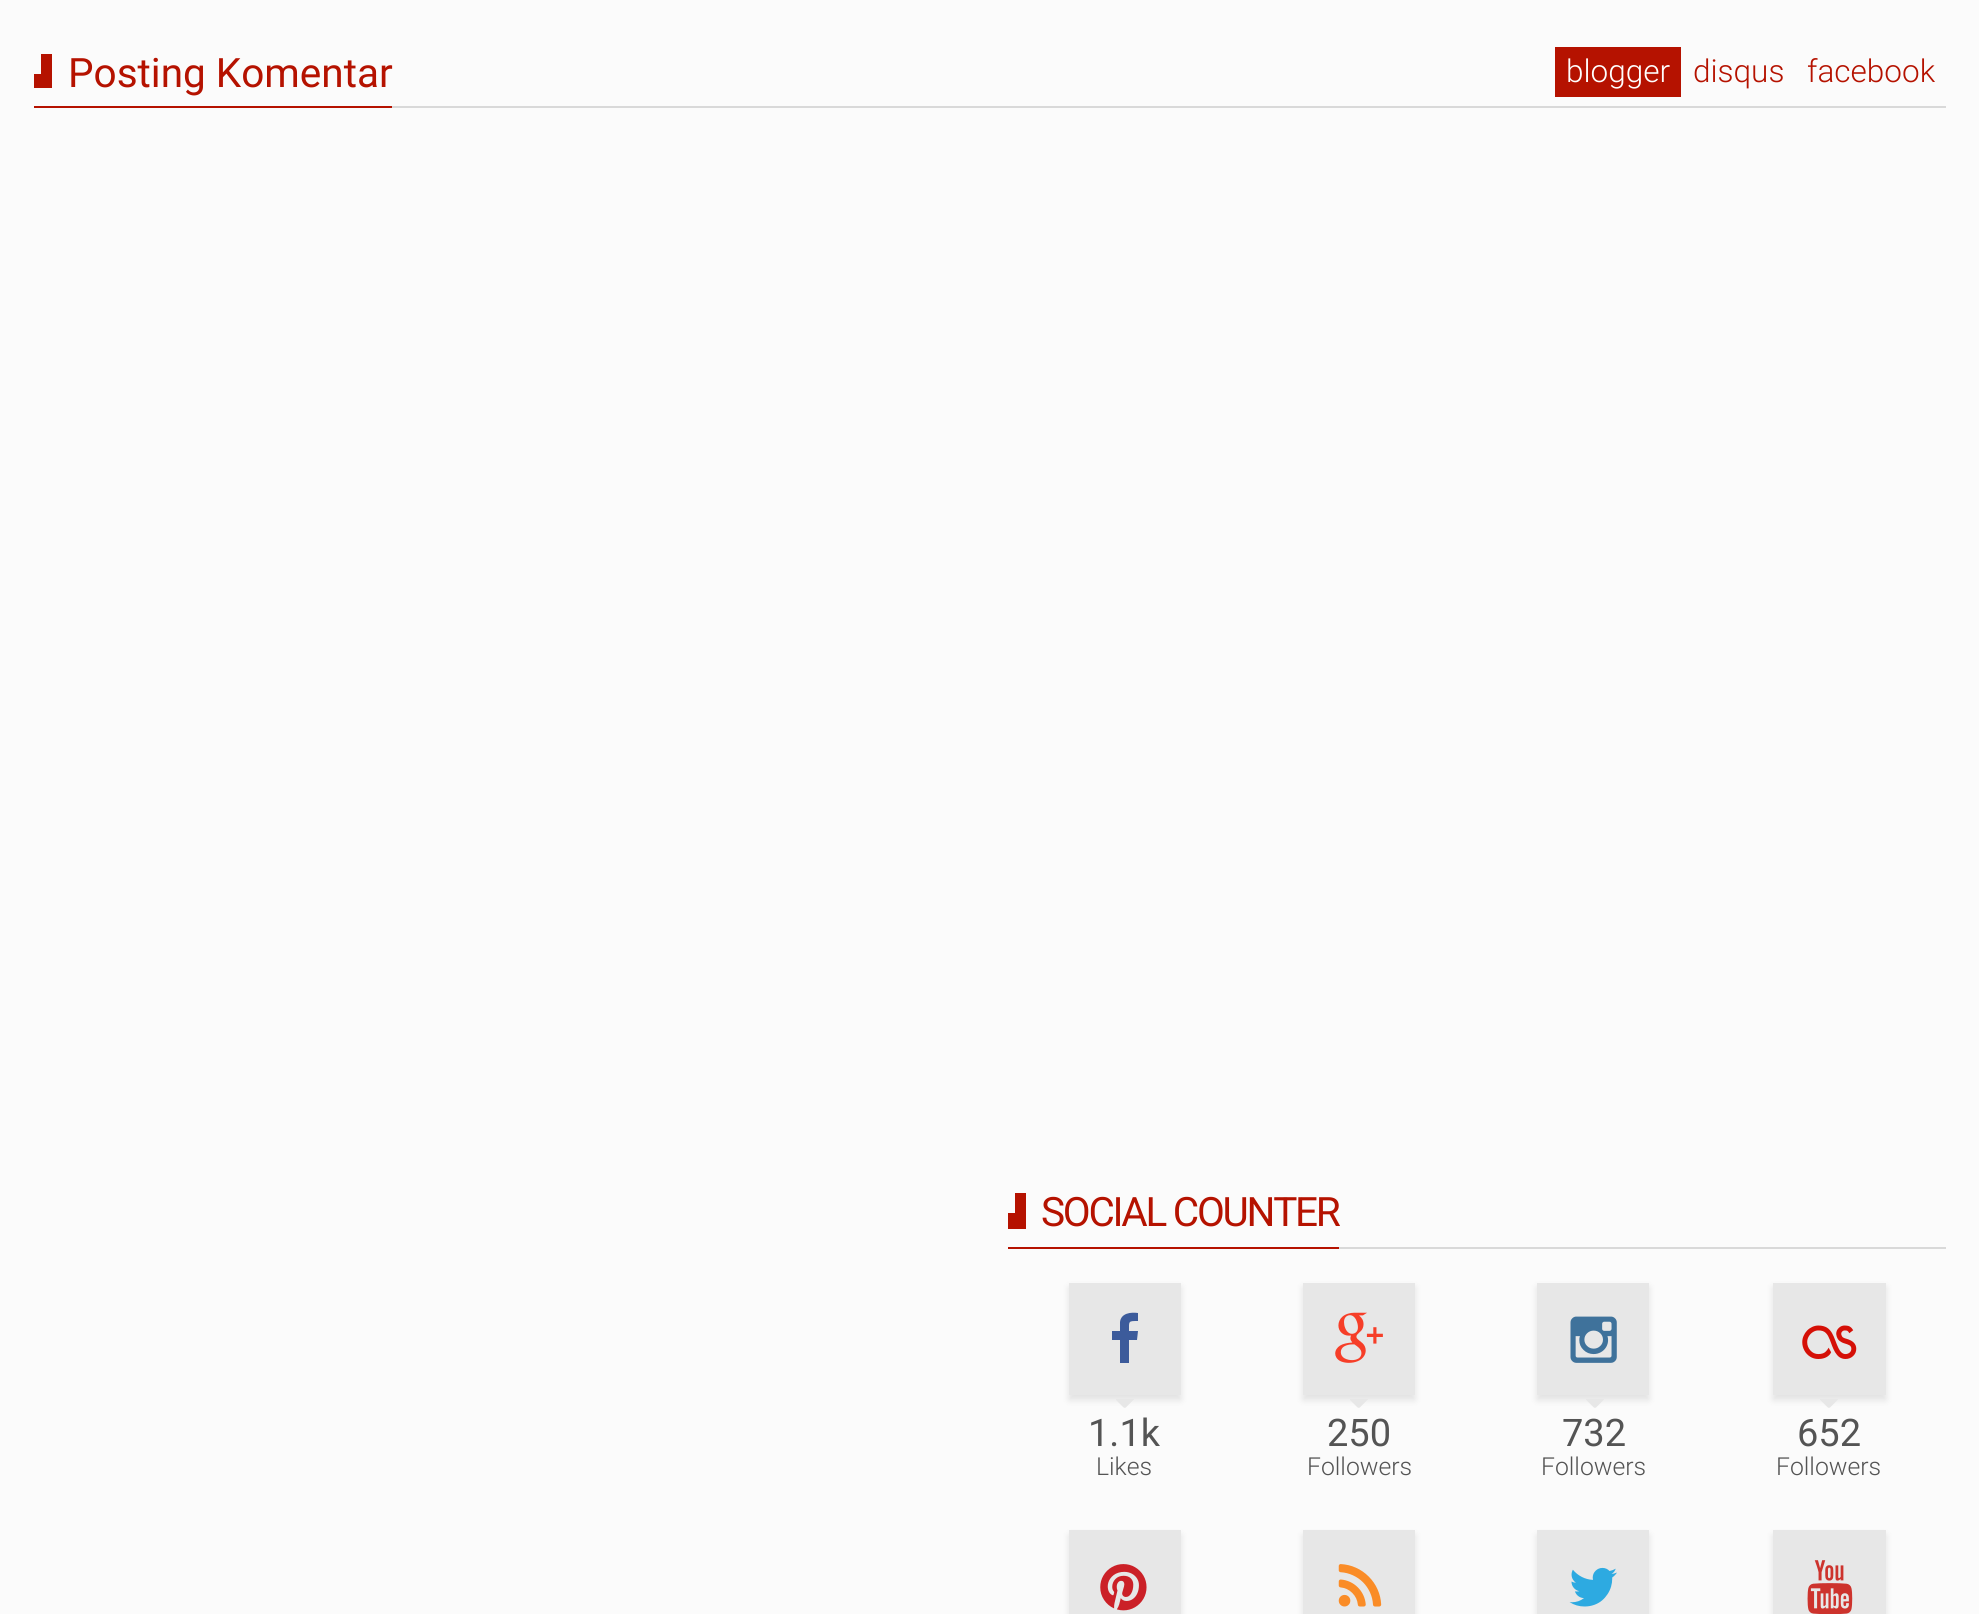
import math
import cairo

surface = cairo.ImageSurface(cairo.FORMAT_RGB24, 1979, 1614)
c = cairo.Context(surface)
options = cairo.FontOptions()
options.set_hint_metrics(cairo.HINT_METRICS_OFF)
options.set_hint_style(cairo.HINT_STYLE_NONE)
c.set_font_options(options)
c.set_miter_limit(4)
def C(code):
 c.set_source_rgb(*(v / 255 for v in bytes.fromhex(code[-6:])))
def F(family, size, italic, bold):
 c.select_font_face(family, cairo.FONT_SLANT_ITALIC if italic else cairo.FONT_SLANT_NORMAL, cairo.FONT_WEIGHT_BOLD if bold else cairo.FONT_WEIGHT_NORMAL)
 c.set_font_size(size)
def T(x, y, s):
 c.move_to(x, y)
 c.show_text(s)
def L(x, y, s, letter, word):
 c.move_to(x, y)
 for ch in s:
  c.show_text(ch)
  c.rel_move_to(letter + word * (ch == ' '), 0)
def R(x, y, w, h):
 c.rectangle(x, y, w, h)
 c.fill()
def Q(x, y, w, h, r):
 c.new_sub_path()
 for i, (u, v) in enumerate([(x + w - r, y + h - r), (x + r, y + h - r), (x + r, y + r), (x + w - r, y + r)]):
  c.arc(u, v, r, i * math.pi / 2, (i + 1) * math.pi / 2)
 c.close_path()
def S(x, y, w, h, r, blur, alpha):
 c.push_group_with_content(cairo.CONTENT_ALPHA)
 c.set_operator(cairo.OPERATOR_SOURCE)
 for i in range(15, -16, -2):
  e = blur * i / 6
  if min(w, h) + 2 * e > 0:
   c.set_source_rgba(0, 0, 0, alpha * math.erfc((i - 1) / 8.5) / 2)
   Q(x - e, y - e, w + 2 * e, h + 2 * e, max(0, min(r + e + blur * .6, min(w, h) / 2 + e)))
   c.fill()
 c.mask(c.pop_group())
def I(path, x, y, w, h):
 c.save()
 c.set_source_surface(cairo.ImageSurface.create_from_png(path), x, y)
 c.rectangle(x, y, w, h)
 c.fill()
 c.restore()
C('fbfbfb')
c.paint()
C('d9d9d9')
R(392,106,1554,2)
C('b51200')
R(34,54,18,34)
C('fbfbfb')
R(34,52,7,22)
C('b51200')
R(34,106,358,2)
F('Roboto',40.5,0,0)
T(68,87,'Posting Komentar')
R(1555,47,126,50)
F('Roboto Light',31.5,0,0)
C('ffffff')
T(1566,82,'blogger')
C('b51200')
T(1693,82,'disqus')
T(1807,82,'facebook')
C('d9d9d9')
R(1339,1247,607,2)
C('b51200')
R(1008,1193,18,36)
C('fbfbfb')
R(1008,1190,7,23)
C('b51200')
R(1008,1247,331,2)
F('Roboto',40.5,0,0)
L(1041,1226,'SOCIAL COUNTER',-2.25,0)
C('000000')
S(1069,1287,112,113,0,3.5,.1)
C('e7e7e7')
R(1069,1283,112,112)
C('3c5b9b')
c.new_path()
c.move_to(1138,1313)
c.line_to(1138,1321)
c.curve_to(1128,1321,1129,1321,1129,1331)
c.line_to(1138,1331)
c.line_to(1137,1340)
c.line_to(1129,1340)
c.line_to(1129,1363)
c.line_to(1120,1363)
c.line_to(1120,1340)
c.line_to(1112,1340)
c.line_to(1112,1331)
c.line_to(1120,1331)
c.line_to(1120,1322)
c.curve_to(1121,1313,1131,1312,1138,1313)
c.close_path()
c.fill()
I('1.png',1116,1399,18,9)
F('Roboto',38,0,0)
C('545454')
T(1088,1446,'1.1k')
F('Roboto Light',24.75,0,0)
T(1096,1475,'Likes')
C('000000')
S(1303,1287,112,113,0,3.5,.1)
C('e7e7e7')
R(1303,1283,112,112)
I('2.png',1335,1312,48,51)
I('1.png',1350,1399,18,9)
F('Roboto',38,0,0)
C('545454')
T(1327,1446,'250')
F('Roboto Light',24.75,0,0)
T(1307,1475,'Followers')
C('000000')
S(1537,1287,112,113,0,3.5,.1)
C('e7e7e7')
R(1537,1283,112,112)
I('3.png',1570,1316,47,47)
I('4.png',1586,1399,18,9)
F('Roboto',38,0,0)
C('545454')
T(1562,1446,'732')
F('Roboto Light',24.75,0,0)
T(1541,1475,'Followers')
C('000000')
S(1773,1287,113,113,0,3.5,.1)
C('e7e7e7')
R(1773,1283,113,112)
I('5.png',1802,1325,55,34)
I('4.png',1820,1399,18,9)
F('Roboto',38,0,0)
C('545454')
T(1797,1446,'652')
F('Roboto Light',24.75,0,0)
T(1776,1475,'Followers')
C('000000')
S(1069,1535,112,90,0,3.5,.1)
C('e7e7e7')
R(1069,1530,112,84)
I('6.png',1100,1564,47,47)
C('000000')
S(1303,1535,112,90,0,3.5,.1)
C('e7e7e7')
R(1303,1530,112,84)
I('7.png',1338,1564,44,43)
C('000000')
S(1537,1535,112,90,0,3.5,.1)
C('e7e7e7')
R(1537,1530,112,84)
I('8.png',1569,1567,48,40)
C('000000')
S(1773,1535,113,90,0,3.5,.1)
C('e7e7e7')
R(1773,1530,113,84)
I('9.png',1807,1560,46,54)
surface.write_to_png('o.png')
